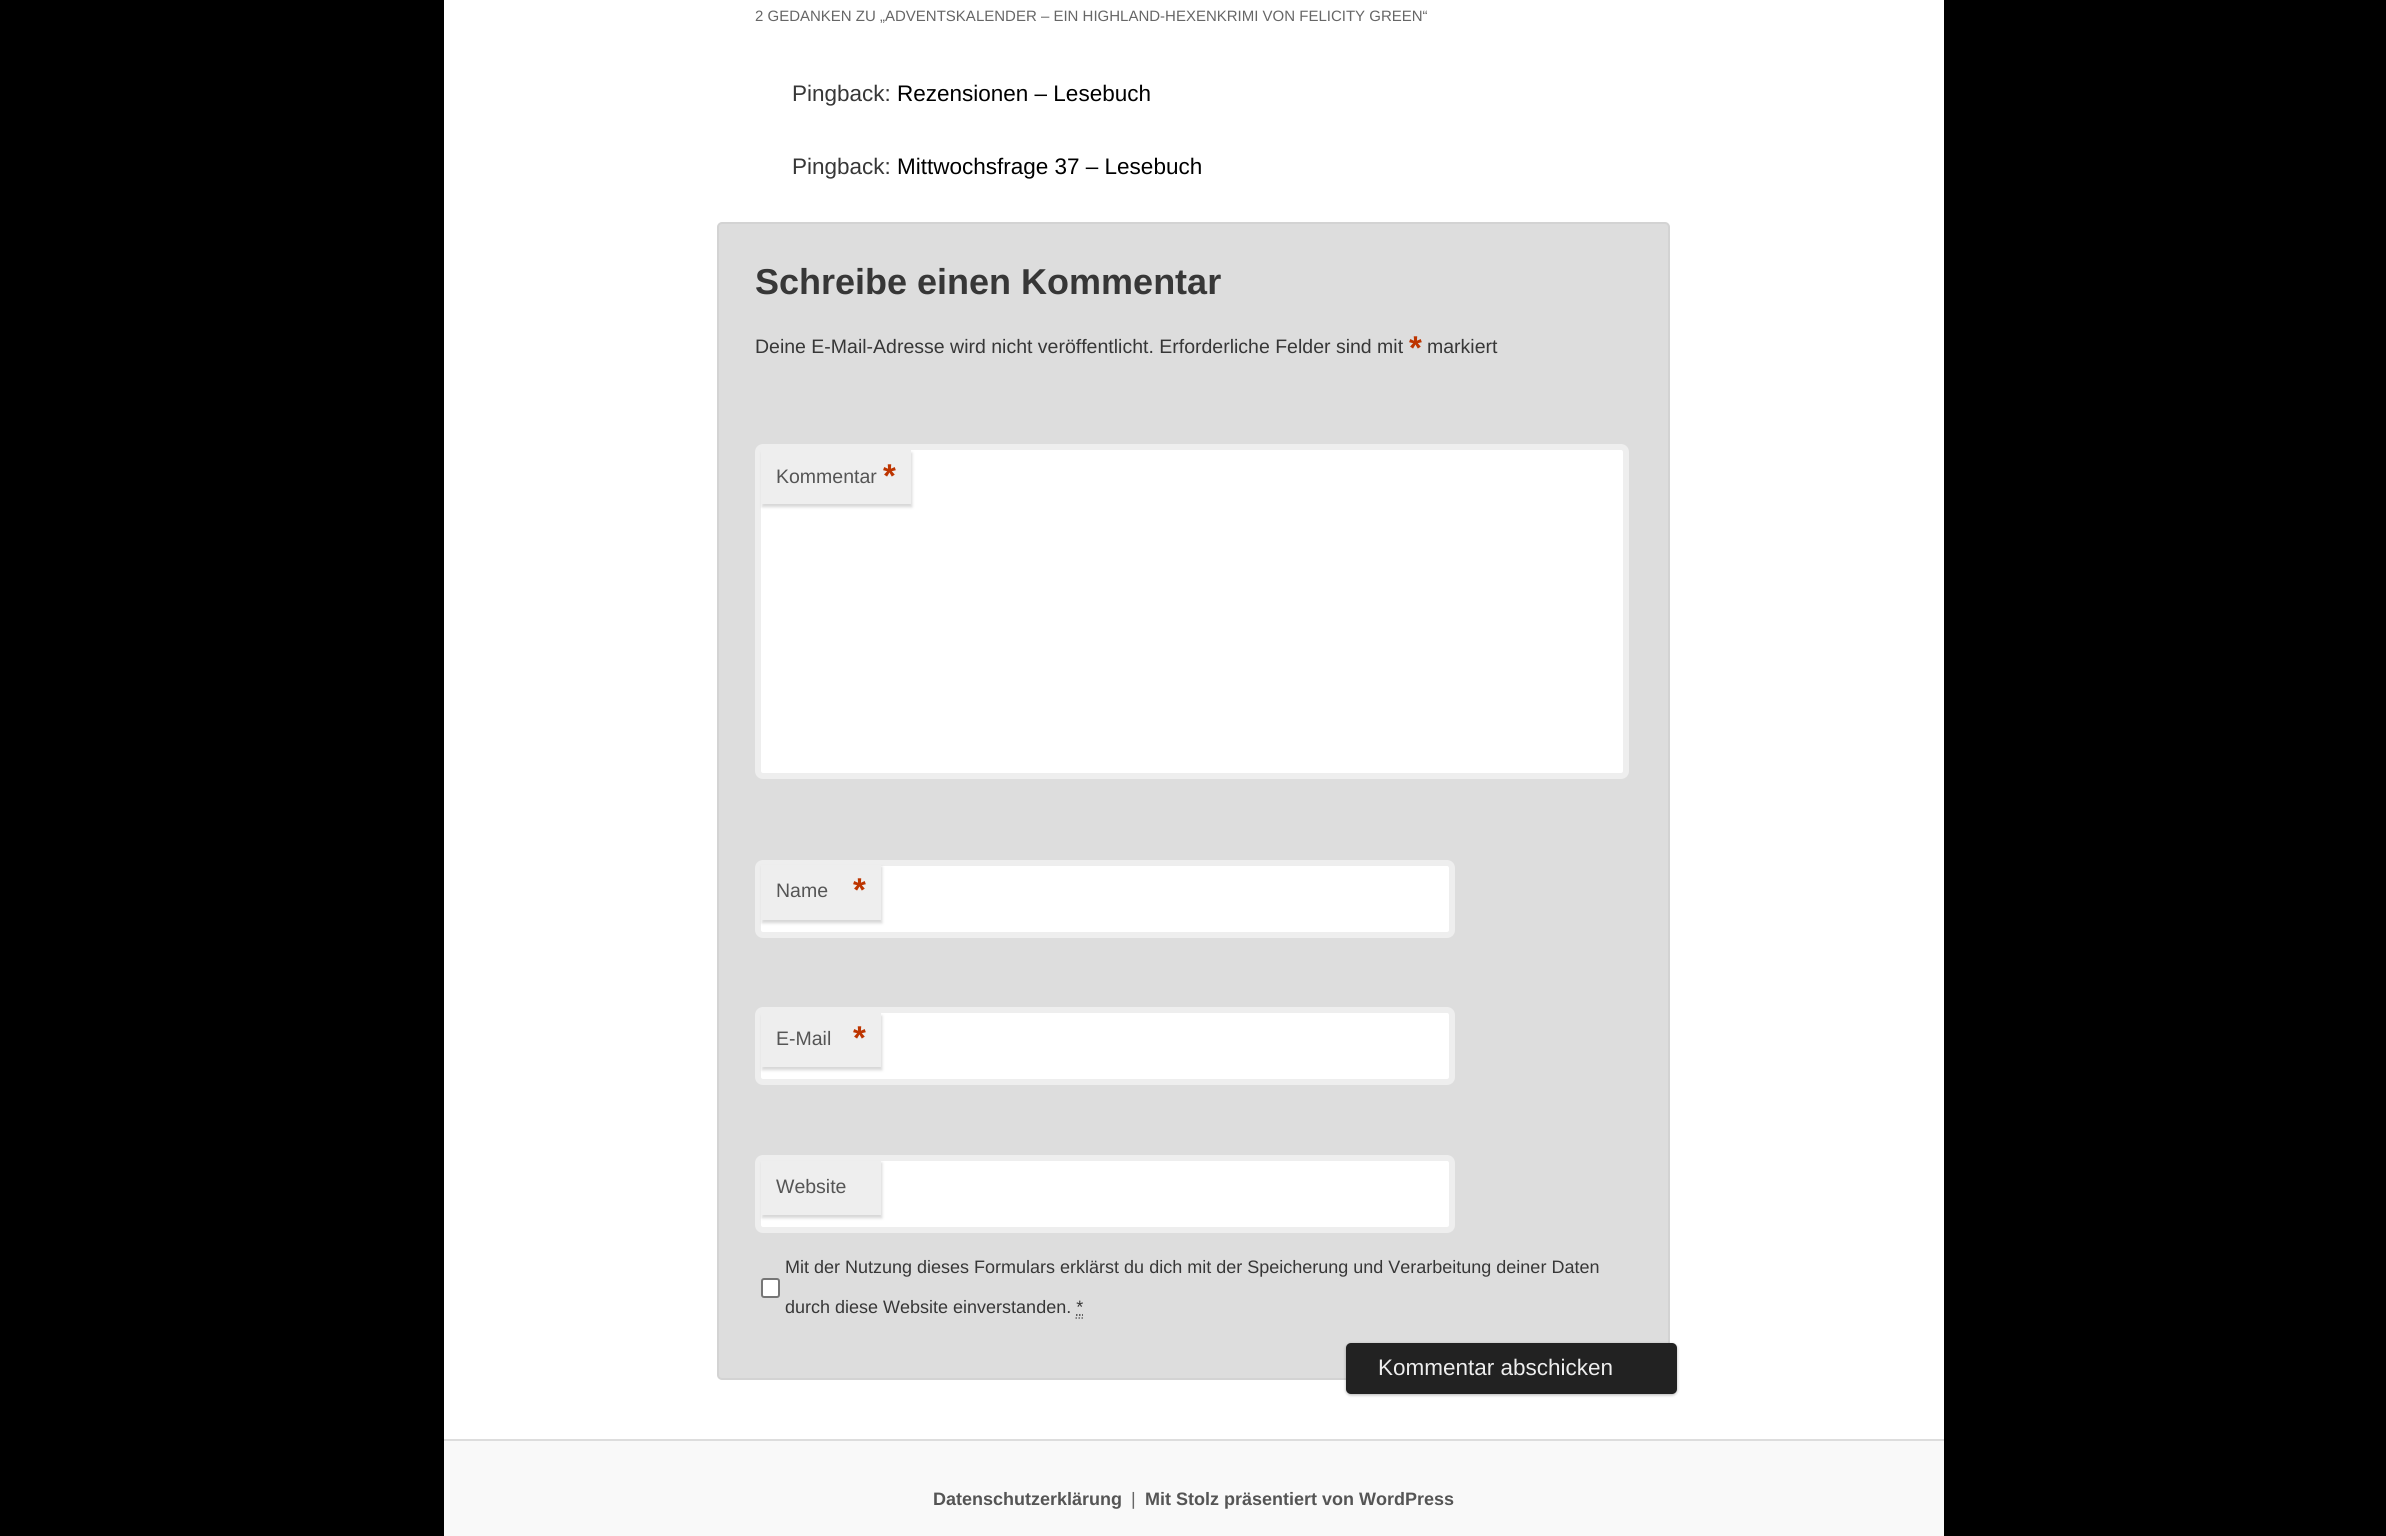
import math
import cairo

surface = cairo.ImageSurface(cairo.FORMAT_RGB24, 2386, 1536)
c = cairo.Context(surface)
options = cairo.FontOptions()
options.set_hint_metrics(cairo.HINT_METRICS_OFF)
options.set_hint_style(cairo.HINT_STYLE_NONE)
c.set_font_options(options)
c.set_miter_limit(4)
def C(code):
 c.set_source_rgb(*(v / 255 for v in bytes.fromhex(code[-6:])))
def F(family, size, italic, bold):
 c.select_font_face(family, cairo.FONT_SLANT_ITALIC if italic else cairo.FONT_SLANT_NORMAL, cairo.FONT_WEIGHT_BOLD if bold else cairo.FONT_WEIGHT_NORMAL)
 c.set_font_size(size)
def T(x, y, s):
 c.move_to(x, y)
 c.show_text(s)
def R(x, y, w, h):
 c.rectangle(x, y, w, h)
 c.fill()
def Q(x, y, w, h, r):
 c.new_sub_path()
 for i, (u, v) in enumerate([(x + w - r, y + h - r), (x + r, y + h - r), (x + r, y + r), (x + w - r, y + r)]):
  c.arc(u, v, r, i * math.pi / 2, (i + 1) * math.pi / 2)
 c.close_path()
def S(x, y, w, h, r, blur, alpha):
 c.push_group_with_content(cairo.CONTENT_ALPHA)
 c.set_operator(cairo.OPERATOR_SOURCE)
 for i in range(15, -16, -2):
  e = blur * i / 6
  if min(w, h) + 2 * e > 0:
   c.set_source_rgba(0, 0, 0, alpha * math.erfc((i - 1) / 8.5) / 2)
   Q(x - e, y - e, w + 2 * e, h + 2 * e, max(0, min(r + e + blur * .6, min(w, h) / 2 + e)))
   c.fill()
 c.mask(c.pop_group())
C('000000')
c.paint()
C('ffffff')
R(444,0,1500,1439)
F('Liberation Sans',15,0,0)
C('666666')
T(755,21,'2 GEDANKEN ZU „ADVENTSKALENDER – EIN HIGHLAND-HEXENKRIMI VON FELICITY GREEN“')
F('Liberation Sans',22.5,0,0)
C('373737')
T(792,101,'Pingback:')
C('000000')
T(897,101,'Rezensionen – Lesebuch')
C('373737')
T(792,174,'Pingback:')
C('000000')
T(897,174,'Mittwochsfrage 37 – Lesebuch')
C('dddddd')
Q(718,223,951,1156,4)
c.fill_preserve()
C('d3d3d3')
c.stroke()
F('Liberation Sans',36,0,1)
C('373737')
T(755,294,'Schreibe einen Kommentar')
F('Liberation Sans',19.5,0,0)
T(755,353,'Deine E-Mail-Adresse wird nicht veröffentlicht. Erforderliche Felder sind mit')
F('Liberation Sans',33,0,1)
C('bd3500')
T(1409,359,'*')
F('Liberation Sans',19.5,0,0)
C('373737')
T(1427,353,'markiert')
C('ffffff')
Q(758,447,868,329,5)
c.fill_preserve()
C('eeeeee')
c.set_line_width(6)
c.stroke()
C('cccccc')
S(762,453,150,54,0,1.5,.8)
C('eeeeee')
R(761,450,150,54)
C('555555')
T(776,483,'Kommentar')
F('Liberation Sans',33,0,1)
C('bd3500')
T(883,487,'*')
C('ffffff')
Q(758,863,694,72,5)
c.fill_preserve()
C('eeeeee')
c.stroke()
C('cccccc')
S(762,867,120,56,0,1.5,.8)
C('eeeeee')
R(761,865,120,55)
F('Liberation Sans',19.5,0,0)
C('555555')
T(776,897,'Name')
F('Liberation Sans',33,0,1)
C('bd3500')
T(853,901,'*')
C('ffffff')
Q(758,1010,694,72,5)
c.fill_preserve()
C('eeeeee')
c.stroke()
C('cccccc')
S(762,1016,120,54,0,1.5,.8)
C('eeeeee')
R(761,1013,120,54)
F('Liberation Sans',19.5,0,0)
C('555555')
T(776,1045,'E-Mail')
F('Liberation Sans',33,0,1)
C('bd3500')
T(853,1049,'*')
C('ffffff')
Q(758,1158,694,72,5)
c.fill_preserve()
C('eeeeee')
c.stroke()
C('cccccc')
S(762,1163,120,55,0,1.5,.8)
C('eeeeee')
R(761,1161,120,54)
F('Liberation Sans',19.5,0,0)
C('555555')
T(776,1193,'Website')
C('ffffff')
Q(762,1279,17,18,2)
c.fill_preserve()
C('767676')
c.set_line_width(2)
c.stroke()
F('Liberation Sans',18,0,0)
C('373737')
T(785,1273,'Mit der Nutzung dieses Formulars erklärst du dich mit der Speicherung und Verarbeitung deiner Daten')
T(785,1313,'durch diese Website einverstanden. *')
c.new_path()
c.move_to(1076,1315)
c.line_to(1077.5,1315)
c.move_to(1079,1315)
c.line_to(1080.5,1315)
c.move_to(1082,1315)
c.line_to(1083,1315)
c.set_line_width(1.5)
c.stroke()
c.new_path()
c.move_to(1075.5,1318)
c.line_to(1077,1318)
c.move_to(1078.5,1318)
c.line_to(1080,1318)
c.move_to(1081.5,1318)
c.line_to(1083,1318)
C('666666')
c.stroke()
C('000000')
S(1346,1344,331,51,5,1.5,.3)
C('222222')
Q(1346,1343,331,51,5)
c.fill()
F('Liberation Sans',22.5,0,0)
C('eeeeee')
T(1378,1375,'Kommentar abschicken')
C('f9f9f9')
R(444,1441,1500,95)
C('dddddd')
R(444,1439,1500,2)
F('Liberation Sans',18,0,1)
C('555555')
T(933,1505,'Datenschutzerklärung')
F('Liberation Sans',18,0,0)
C('666666')
T(1131,1505,'|')
F('Liberation Sans',18,0,1)
C('555555')
T(1145,1505,'Mit Stolz präsentiert von WordPress')
surface.write_to_png('o.png')
